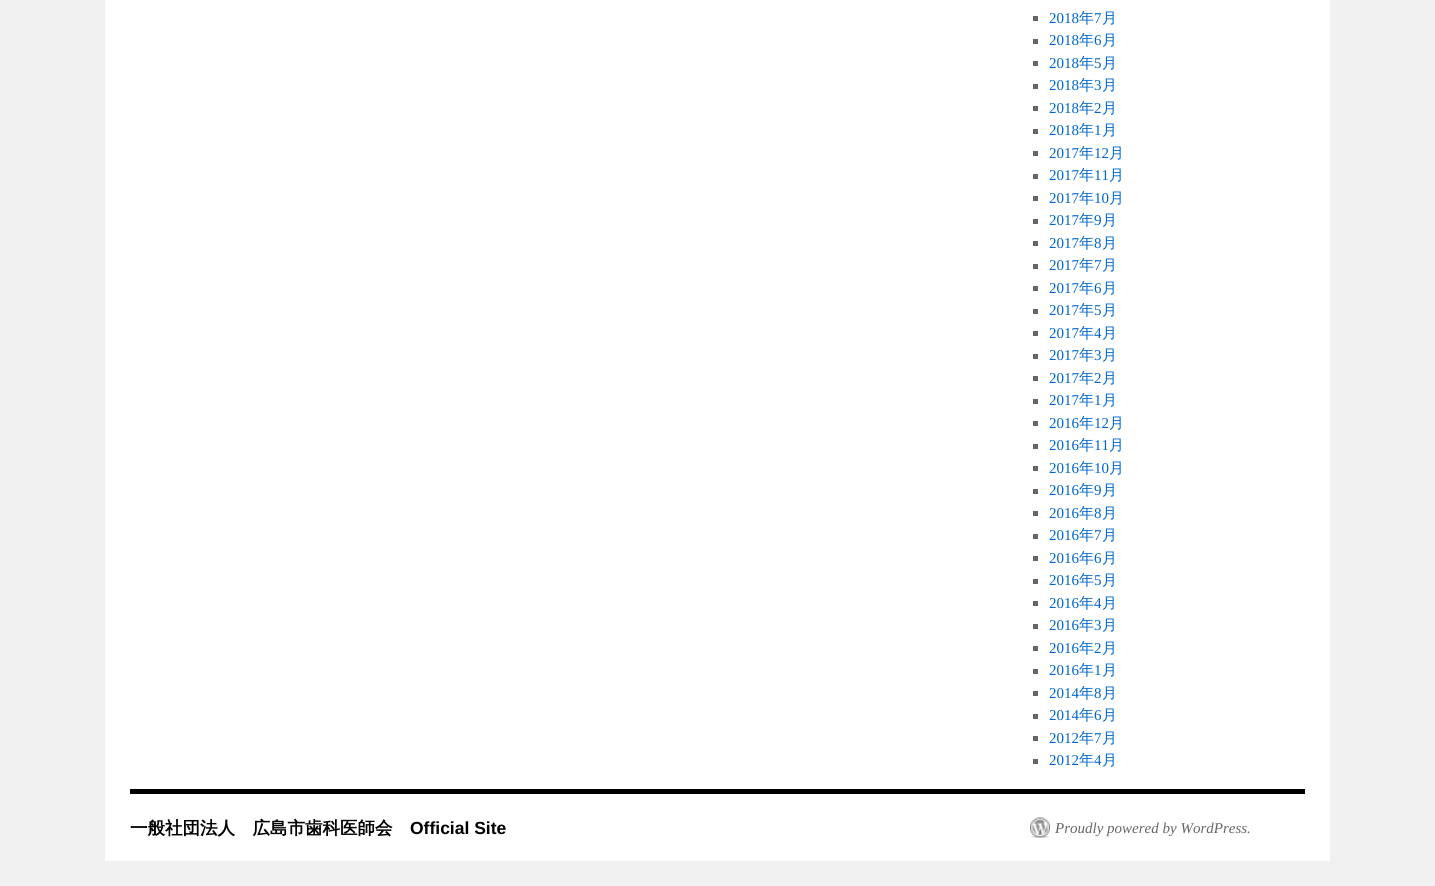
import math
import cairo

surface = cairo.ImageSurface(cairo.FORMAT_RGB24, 1435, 886)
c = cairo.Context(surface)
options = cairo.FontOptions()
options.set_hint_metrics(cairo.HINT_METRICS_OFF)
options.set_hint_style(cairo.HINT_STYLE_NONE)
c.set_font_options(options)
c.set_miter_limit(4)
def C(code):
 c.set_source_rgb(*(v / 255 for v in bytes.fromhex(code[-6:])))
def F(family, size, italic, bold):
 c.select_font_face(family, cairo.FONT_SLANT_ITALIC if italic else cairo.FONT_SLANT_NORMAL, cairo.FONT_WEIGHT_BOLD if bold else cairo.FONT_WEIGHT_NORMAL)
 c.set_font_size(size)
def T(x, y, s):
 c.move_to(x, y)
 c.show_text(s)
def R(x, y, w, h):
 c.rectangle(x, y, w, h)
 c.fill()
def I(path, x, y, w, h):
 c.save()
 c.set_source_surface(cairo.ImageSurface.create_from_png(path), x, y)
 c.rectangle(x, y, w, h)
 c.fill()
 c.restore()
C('f1f1f1')
c.paint()
C('ffffff')
R(105,0,1225,861)
C('666666')
R(1033,16,5,5)
F('Liberation Serif',15,0,0)
C('0066cc')
T(1049,23,'2018')
F('WenQuanYi Zen Hei Medium',15,0,0)
T(1079,23,'年')
F('Liberation Serif',15,0,0)
T(1094,23,'7')
F('WenQuanYi Zen Hei Medium',15,0,0)
T(1102,23,'月')
C('666666')
R(1033,39,5,5)
F('Liberation Serif',15,0,0)
C('0066cc')
T(1049,45,'2018')
F('WenQuanYi Zen Hei Medium',15,0,0)
T(1079,45,'年')
F('Liberation Serif',15,0,0)
T(1094,45,'6')
F('WenQuanYi Zen Hei Medium',15,0,0)
T(1102,45,'月')
C('666666')
R(1033,61,5,5)
F('Liberation Serif',15,0,0)
C('0066cc')
T(1049,68,'2018')
F('WenQuanYi Zen Hei Medium',15,0,0)
T(1079,68,'年')
F('Liberation Serif',15,0,0)
T(1094,68,'5')
F('WenQuanYi Zen Hei Medium',15,0,0)
T(1102,68,'月')
C('666666')
R(1033,84,5,5)
F('Liberation Serif',15,0,0)
C('0066cc')
T(1049,90,'2018')
F('WenQuanYi Zen Hei Medium',15,0,0)
T(1079,90,'年')
F('Liberation Serif',15,0,0)
T(1094,90,'3')
F('WenQuanYi Zen Hei Medium',15,0,0)
T(1102,90,'月')
C('666666')
R(1033,106,5,5)
F('Liberation Serif',15,0,0)
C('0066cc')
T(1049,113,'2018')
F('WenQuanYi Zen Hei Medium',15,0,0)
T(1079,113,'年')
F('Liberation Serif',15,0,0)
T(1094,113,'2')
F('WenQuanYi Zen Hei Medium',15,0,0)
T(1102,113,'月')
C('666666')
R(1033,129,5,5)
F('Liberation Serif',15,0,0)
C('0066cc')
T(1049,135,'2018')
F('WenQuanYi Zen Hei Medium',15,0,0)
T(1079,135,'年')
F('Liberation Serif',15,0,0)
T(1094,135,'1')
F('WenQuanYi Zen Hei Medium',15,0,0)
T(1102,135,'月')
C('666666')
R(1033,151,5,5)
F('Liberation Serif',15,0,0)
C('0066cc')
T(1049,158,'2017')
F('WenQuanYi Zen Hei Medium',15,0,0)
T(1079,158,'年')
F('Liberation Serif',15,0,0)
T(1094,158,'12')
F('WenQuanYi Zen Hei Medium',15,0,0)
T(1109,158,'月')
C('666666')
R(1033,174,5,5)
F('Liberation Serif',15,0,0)
C('0066cc')
T(1049,180,'2017')
F('WenQuanYi Zen Hei Medium',15,0,0)
T(1079,180,'年')
F('Liberation Serif',15,0,0)
T(1094,180,'11')
F('WenQuanYi Zen Hei Medium',15,0,0)
T(1109,180,'月')
C('666666')
R(1033,196,5,5)
F('Liberation Serif',15,0,0)
C('0066cc')
T(1049,203,'2017')
F('WenQuanYi Zen Hei Medium',15,0,0)
T(1079,203,'年')
F('Liberation Serif',15,0,0)
T(1094,203,'10')
F('WenQuanYi Zen Hei Medium',15,0,0)
T(1109,203,'月')
C('666666')
R(1033,219,5,5)
F('Liberation Serif',15,0,0)
C('0066cc')
T(1049,225,'2017')
F('WenQuanYi Zen Hei Medium',15,0,0)
T(1079,225,'年')
F('Liberation Serif',15,0,0)
T(1094,225,'9')
F('WenQuanYi Zen Hei Medium',15,0,0)
T(1102,225,'月')
C('666666')
R(1033,241,5,5)
F('Liberation Serif',15,0,0)
C('0066cc')
T(1049,248,'2017')
F('WenQuanYi Zen Hei Medium',15,0,0)
T(1079,248,'年')
F('Liberation Serif',15,0,0)
T(1094,248,'8')
F('WenQuanYi Zen Hei Medium',15,0,0)
T(1102,248,'月')
C('666666')
R(1033,264,5,5)
F('Liberation Serif',15,0,0)
C('0066cc')
T(1049,270,'2017')
F('WenQuanYi Zen Hei Medium',15,0,0)
T(1079,270,'年')
F('Liberation Serif',15,0,0)
T(1094,270,'7')
F('WenQuanYi Zen Hei Medium',15,0,0)
T(1102,270,'月')
C('666666')
R(1033,286,5,5)
F('Liberation Serif',15,0,0)
C('0066cc')
T(1049,293,'2017')
F('WenQuanYi Zen Hei Medium',15,0,0)
T(1079,293,'年')
F('Liberation Serif',15,0,0)
T(1094,293,'6')
F('WenQuanYi Zen Hei Medium',15,0,0)
T(1102,293,'月')
C('666666')
R(1033,309,5,5)
F('Liberation Serif',15,0,0)
C('0066cc')
T(1049,315,'2017')
F('WenQuanYi Zen Hei Medium',15,0,0)
T(1079,315,'年')
F('Liberation Serif',15,0,0)
T(1094,315,'5')
F('WenQuanYi Zen Hei Medium',15,0,0)
T(1102,315,'月')
C('666666')
R(1033,331,5,5)
F('Liberation Serif',15,0,0)
C('0066cc')
T(1049,338,'2017')
F('WenQuanYi Zen Hei Medium',15,0,0)
T(1079,338,'年')
F('Liberation Serif',15,0,0)
T(1094,338,'4')
F('WenQuanYi Zen Hei Medium',15,0,0)
T(1102,338,'月')
C('666666')
R(1033,354,5,5)
F('Liberation Serif',15,0,0)
C('0066cc')
T(1049,360,'2017')
F('WenQuanYi Zen Hei Medium',15,0,0)
T(1079,360,'年')
F('Liberation Serif',15,0,0)
T(1094,360,'3')
F('WenQuanYi Zen Hei Medium',15,0,0)
T(1102,360,'月')
C('666666')
R(1033,376,5,5)
F('Liberation Serif',15,0,0)
C('0066cc')
T(1049,383,'2017')
F('WenQuanYi Zen Hei Medium',15,0,0)
T(1079,383,'年')
F('Liberation Serif',15,0,0)
T(1094,383,'2')
F('WenQuanYi Zen Hei Medium',15,0,0)
T(1102,383,'月')
C('666666')
R(1033,399,5,5)
F('Liberation Serif',15,0,0)
C('0066cc')
T(1049,405,'2017')
F('WenQuanYi Zen Hei Medium',15,0,0)
T(1079,405,'年')
F('Liberation Serif',15,0,0)
T(1094,405,'1')
F('WenQuanYi Zen Hei Medium',15,0,0)
T(1102,405,'月')
C('666666')
R(1033,421,5,5)
F('Liberation Serif',15,0,0)
C('0066cc')
T(1049,428,'2016')
F('WenQuanYi Zen Hei Medium',15,0,0)
T(1079,428,'年')
F('Liberation Serif',15,0,0)
T(1094,428,'12')
F('WenQuanYi Zen Hei Medium',15,0,0)
T(1109,428,'月')
C('666666')
R(1033,444,5,5)
F('Liberation Serif',15,0,0)
C('0066cc')
T(1049,450,'2016')
F('WenQuanYi Zen Hei Medium',15,0,0)
T(1079,450,'年')
F('Liberation Serif',15,0,0)
T(1094,450,'11')
F('WenQuanYi Zen Hei Medium',15,0,0)
T(1109,450,'月')
C('666666')
R(1033,466,5,5)
F('Liberation Serif',15,0,0)
C('0066cc')
T(1049,473,'2016')
F('WenQuanYi Zen Hei Medium',15,0,0)
T(1079,473,'年')
F('Liberation Serif',15,0,0)
T(1094,473,'10')
F('WenQuanYi Zen Hei Medium',15,0,0)
T(1109,473,'月')
C('666666')
R(1033,489,5,5)
F('Liberation Serif',15,0,0)
C('0066cc')
T(1049,495,'2016')
F('WenQuanYi Zen Hei Medium',15,0,0)
T(1079,495,'年')
F('Liberation Serif',15,0,0)
T(1094,495,'9')
F('WenQuanYi Zen Hei Medium',15,0,0)
T(1102,495,'月')
C('666666')
R(1033,511,5,5)
F('Liberation Serif',15,0,0)
C('0066cc')
T(1049,518,'2016')
F('WenQuanYi Zen Hei Medium',15,0,0)
T(1079,518,'年')
F('Liberation Serif',15,0,0)
T(1094,518,'8')
F('WenQuanYi Zen Hei Medium',15,0,0)
T(1102,518,'月')
C('666666')
R(1033,534,5,5)
F('Liberation Serif',15,0,0)
C('0066cc')
T(1049,540,'2016')
F('WenQuanYi Zen Hei Medium',15,0,0)
T(1079,540,'年')
F('Liberation Serif',15,0,0)
T(1094,540,'7')
F('WenQuanYi Zen Hei Medium',15,0,0)
T(1102,540,'月')
C('666666')
R(1033,556,5,5)
F('Liberation Serif',15,0,0)
C('0066cc')
T(1049,563,'2016')
F('WenQuanYi Zen Hei Medium',15,0,0)
T(1079,563,'年')
F('Liberation Serif',15,0,0)
T(1094,563,'6')
F('WenQuanYi Zen Hei Medium',15,0,0)
T(1102,563,'月')
C('666666')
R(1033,579,5,5)
F('Liberation Serif',15,0,0)
C('0066cc')
T(1049,585,'2016')
F('WenQuanYi Zen Hei Medium',15,0,0)
T(1079,585,'年')
F('Liberation Serif',15,0,0)
T(1094,585,'5')
F('WenQuanYi Zen Hei Medium',15,0,0)
T(1102,585,'月')
C('666666')
R(1033,601,5,5)
F('Liberation Serif',15,0,0)
C('0066cc')
T(1049,608,'2016')
F('WenQuanYi Zen Hei Medium',15,0,0)
T(1079,608,'年')
F('Liberation Serif',15,0,0)
T(1094,608,'4')
F('WenQuanYi Zen Hei Medium',15,0,0)
T(1102,608,'月')
C('666666')
R(1033,624,5,5)
F('Liberation Serif',15,0,0)
C('0066cc')
T(1049,630,'2016')
F('WenQuanYi Zen Hei Medium',15,0,0)
T(1079,630,'年')
F('Liberation Serif',15,0,0)
T(1094,630,'3')
F('WenQuanYi Zen Hei Medium',15,0,0)
T(1102,630,'月')
C('666666')
R(1033,646,5,5)
F('Liberation Serif',15,0,0)
C('0066cc')
T(1049,653,'2016')
F('WenQuanYi Zen Hei Medium',15,0,0)
T(1079,653,'年')
F('Liberation Serif',15,0,0)
T(1094,653,'2')
F('WenQuanYi Zen Hei Medium',15,0,0)
T(1102,653,'月')
C('666666')
R(1033,669,5,5)
F('Liberation Serif',15,0,0)
C('0066cc')
T(1049,675,'2016')
F('WenQuanYi Zen Hei Medium',15,0,0)
T(1079,675,'年')
F('Liberation Serif',15,0,0)
T(1094,675,'1')
F('WenQuanYi Zen Hei Medium',15,0,0)
T(1102,675,'月')
C('666666')
R(1033,691,5,5)
F('Liberation Serif',15,0,0)
C('0066cc')
T(1049,698,'2014')
F('WenQuanYi Zen Hei Medium',15,0,0)
T(1079,698,'年')
F('Liberation Serif',15,0,0)
T(1094,698,'8')
F('WenQuanYi Zen Hei Medium',15,0,0)
T(1102,698,'月')
C('666666')
R(1033,714,5,5)
F('Liberation Serif',15,0,0)
C('0066cc')
T(1049,720,'2014')
F('WenQuanYi Zen Hei Medium',15,0,0)
T(1079,720,'年')
F('Liberation Serif',15,0,0)
T(1094,720,'6')
F('WenQuanYi Zen Hei Medium',15,0,0)
T(1102,720,'月')
C('666666')
R(1033,736,5,5)
F('Liberation Serif',15,0,0)
C('0066cc')
T(1049,743,'2012')
F('WenQuanYi Zen Hei Medium',15,0,0)
T(1079,743,'年')
F('Liberation Serif',15,0,0)
T(1094,743,'7')
F('WenQuanYi Zen Hei Medium',15,0,0)
T(1102,743,'月')
C('666666')
R(1033,759,5,5)
F('Liberation Serif',15,0,0)
C('0066cc')
T(1049,765,'2012')
F('WenQuanYi Zen Hei Medium',15,0,0)
T(1079,765,'年')
F('Liberation Serif',15,0,0)
T(1094,765,'4')
F('WenQuanYi Zen Hei Medium',15,0,0)
T(1102,765,'月')
C('000000')
R(130,789,1175,5)
F('WenQuanYi Zen Hei',17.5,0,1)
T(130,834,'一般社団法人　広島市歯科医師会')
F('Liberation Sans',17.5,0,1)
T(410,834,'Official Site')
I('1.png',1030,817,20,21)
F('Liberation Serif',15,1,0)
C('666666')
T(1055,833,'Proudly powered by WordPress.')
surface.write_to_png('o.png')
